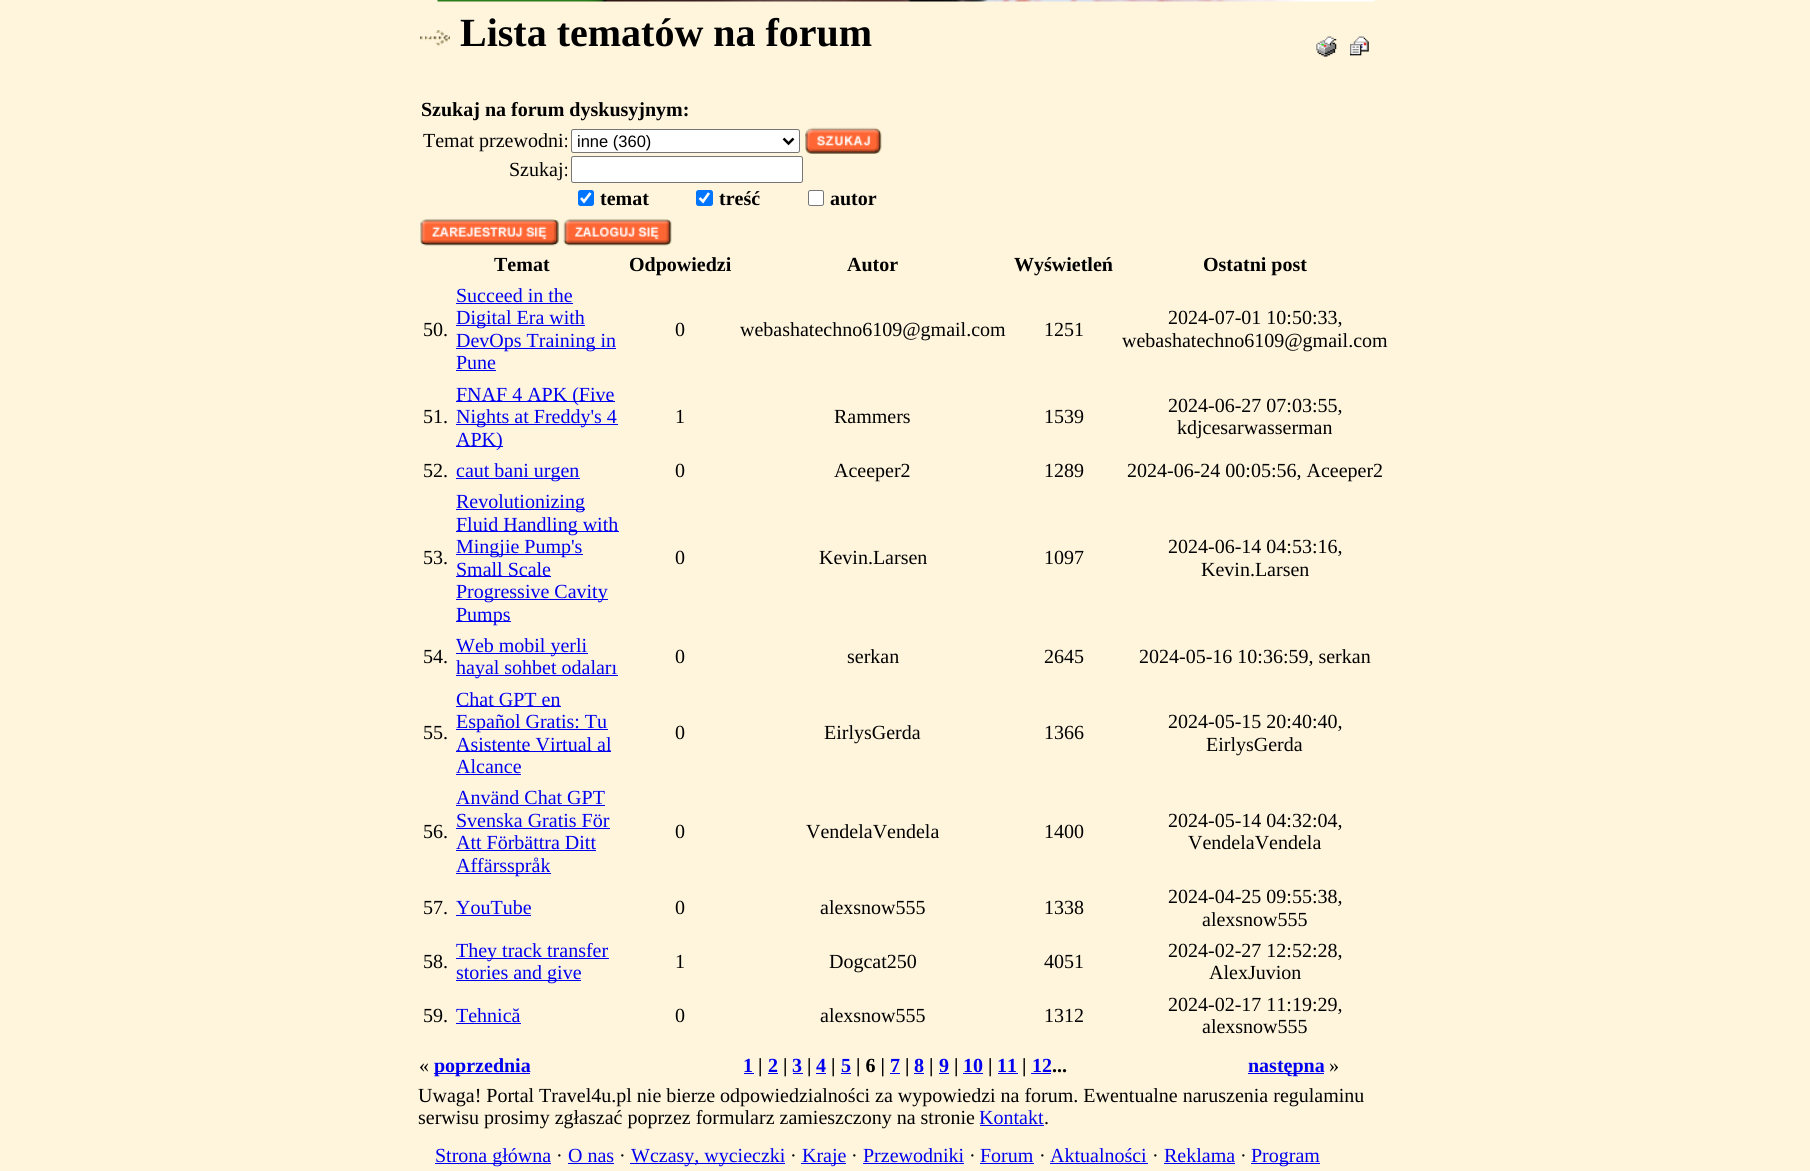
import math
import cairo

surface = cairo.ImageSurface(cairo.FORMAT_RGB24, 1810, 1171)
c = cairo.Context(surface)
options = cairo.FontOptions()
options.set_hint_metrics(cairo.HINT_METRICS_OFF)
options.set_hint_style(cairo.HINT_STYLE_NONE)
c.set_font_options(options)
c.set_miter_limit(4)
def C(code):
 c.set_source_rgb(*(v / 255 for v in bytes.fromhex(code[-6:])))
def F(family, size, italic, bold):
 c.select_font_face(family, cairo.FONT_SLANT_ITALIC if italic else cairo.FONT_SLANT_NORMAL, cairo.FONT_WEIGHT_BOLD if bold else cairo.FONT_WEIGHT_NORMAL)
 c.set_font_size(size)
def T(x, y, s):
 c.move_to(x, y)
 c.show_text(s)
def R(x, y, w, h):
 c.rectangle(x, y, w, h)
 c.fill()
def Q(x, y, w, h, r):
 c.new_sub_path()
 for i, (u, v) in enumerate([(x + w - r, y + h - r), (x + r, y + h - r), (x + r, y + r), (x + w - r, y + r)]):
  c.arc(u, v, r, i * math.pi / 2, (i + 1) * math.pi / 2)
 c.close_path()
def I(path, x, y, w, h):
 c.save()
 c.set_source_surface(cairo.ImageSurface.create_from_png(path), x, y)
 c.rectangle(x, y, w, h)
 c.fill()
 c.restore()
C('fff5dd')
c.paint()
I('1.png',437,0,938,2)
I('2.png',420,30,30,16)
F('Liberation Serif',40,0,1)
C('000000')
T(460,46,'Lista tematów na forum')
I('3.png',1316,36,21,21)
I('4.png',1350,36,19,20)
F('Liberation Serif',20,0,1)
T(421,116,'Szukaj na forum dyskusyjnym:')
F('Liberation Serif',20,0,0)
T(423,147,'Temat przewodni:')
C('ffffff')
Q(571.5,129.5,228,23,2)
c.fill_preserve()
C('767676')
c.set_line_width(1)
c.stroke()
c.new_path()
c.move_to(783.5,138.5)
c.line_to(788.5,143.5)
c.line_to(793.5,138.5)
C('000000')
c.set_line_width(2.5)
c.stroke()
F('Liberation Sans',16.5,0,0)
T(577,147,'inne (360)')
I('5.png',805,127,77,27)
F('Liberation Serif',20,0,0)
T(509,176,'Szukaj:')
C('ffffff')
Q(571.5,156.5,231,26,2)
c.fill_preserve()
C('767676')
c.set_line_width(1)
c.stroke()
C('0075ff')
Q(578,190,16,16,2.5)
c.fill()
c.new_path()
c.move_to(581,198)
c.line_to(584,201.5)
c.line_to(590.5,193)
C('ffffff')
c.set_line_width(2.6)
c.stroke()
F('Liberation Serif',20,0,1)
C('000000')
T(600,205,'temat')
C('0075ff')
Q(696,190,17,16,2.5)
c.fill()
c.new_path()
c.move_to(699.5,198)
c.line_to(703,201.5)
c.line_to(709,193)
C('ffffff')
c.stroke()
C('000000')
T(719,205,'treść')
C('ffffff')
Q(808.5,190.5,15,15,2)
c.fill_preserve()
C('767676')
c.set_line_width(1)
c.stroke()
C('000000')
T(830,205,'autor')
I('6.png',420,219,139,27)
I('7.png',563,219,109,27)
T(494,271,'Temat')
T(629,271,'Odpowiedzi')
T(847,271,'Autor')
T(1014,271,'Wyświetleń')
T(1203,271,'Ostatni post')
F('Liberation Serif',20,0,0)
T(423,336,'50.')
C('0000ee')
T(456,302,'Succeed in the')
R(456,303,117,1)
R(456,325,129,1)
T(456,324,'Digital Era with')
R(456,348,160,1)
T(456,347,'DevOps Training in')
T(456,369,'Pune')
R(456,370,40,1)
C('000000')
T(675,336,'0')
T(740,336,'webashatechno6109@gmail.com')
T(1044,336,'1251')
T(1168,324,'2024-07-01 10:50:33,')
T(1122,347,'webashatechno6109@gmail.com')
T(423,423,'51.')
C('0000ee')
R(456,401,159,1)
T(456,401,'FNAF 4 APK (Five')
R(456,424,162,1)
T(456,423,'Nights at Freddy\'s 4')
R(456,446,47,1)
T(456,446,'APK)')
C('000000')
T(675,423,'1')
T(834,423,'Rammers')
T(1044,423,'1539')
T(1168,412,'2024-06-27 07:03:55,')
T(1177,434,'kdjcesarwasserman')
T(423,477,'52.')
C('0000ee')
R(456,478,124,1)
T(456,477,'caut bani urgen')
C('000000')
T(675,477,'0')
T(834,477,'Aceeper2')
T(1044,477,'1289')
T(1127,477,'2024-06-24 00:05:56, Aceeper2')
T(423,564,'53.')
C('0000ee')
R(456,509,129,1)
T(456,508,'Revolutionizing')
R(456,531,163,1)
T(456,531,'Fluid Handling with')
R(456,554,127,1)
T(456,553,'Mingjie Pump\'s')
R(456,576,95,1)
T(456,576,'Small Scale')
R(456,599,152,1)
T(456,598,'Progressive Cavity')
R(456,621,55,1)
T(456,621,'Pumps')
C('000000')
T(675,564,'0')
T(819,564,'Kevin.Larsen')
T(1044,564,'1097')
T(1168,553,'2024-06-14 04:53:16,')
T(1201,576,'Kevin.Larsen')
T(423,663,'54.')
C('0000ee')
R(456,653,132,1)
T(456,652,'Web mobil yerli')
R(456,675,162,1)
T(456,674,'hayal sohbet odaları')
C('000000')
T(675,663,'0')
T(847,663,'serkan')
T(1044,663,'2645')
T(1139,663,'2024-05-16 10:36:59, serkan')
T(423,739,'55.')
C('0000ee')
R(456,706,105,1)
T(456,706,'Chat GPT en')
R(456,729,152,1)
T(456,728,'Español Gratis: Tu')
R(456,751,155,1)
T(456,751,'Asistente Virtual al')
T(456,773,'Alcance')
R(456,774,65,1)
C('000000')
T(675,739,'0')
T(824,739,'EirlysGerda')
T(1044,739,'1366')
T(1168,728,'2024-05-15 20:40:40,')
T(1206,751,'EirlysGerda')
T(423,838,'56.')
C('0000ee')
T(456,804,'Använd Chat GPT')
R(456,805,149,1)
T(456,827,'Svenska Gratis För')
R(456,828,154,1)
T(456,849,'Att Förbättra Ditt')
R(456,850,140,1)
R(456,873,95,1)
T(456,872,'Affärsspråk')
C('000000')
T(675,838,'0')
T(806,838,'VendelaVendela')
T(1044,838,'1400')
T(1168,827,'2024-05-14 04:32:04,')
T(1188,849,'VendelaVendela')
T(423,914,'57.')
C('0000ee')
T(456,914,'YouTube')
R(456,915,75,1)
C('000000')
T(675,914,'0')
T(820,914,'alexsnow555')
T(1044,914,'1338')
T(1168,903,'2024-04-25 09:55:38,')
T(1202,926,'alexsnow555')
T(423,968,'58.')
C('0000ee')
R(456,958,153,1)
T(456,957,'They track transfer')
R(456,980,125,1)
T(456,979,'stories and give')
C('000000')
T(675,968,'1')
T(829,968,'Dogcat250')
T(1044,968,'4051')
T(1168,957,'2024-02-27 12:52:28,')
T(1209,979,'AlexJuvion')
T(423,1022,'59.')
C('0000ee')
T(456,1022,'Tehnică')
R(456,1023,65,1)
C('000000')
T(675,1022,'0')
T(820,1022,'alexsnow555')
T(1044,1022,'1312')
T(1168,1011,'2024-02-17 11:19:29,')
T(1202,1033,'alexsnow555')
T(419,1072,'«')
C('0000ee')
R(434,1073,96,1)
F('Liberation Serif',20,0,1)
T(434,1072,'poprzednia')
T(743,1072,'1')
R(744,1073,10,1)
C('000000')
T(758,1072,'|')
C('0000ee')
T(768,1072,'2')
R(768,1073,10,1)
C('000000')
T(783,1072,'|')
C('0000ee')
T(792,1072,'3')
R(793,1073,10,1)
C('000000')
T(807,1072,'|')
C('0000ee')
T(816,1072,'4')
R(816,1073,10,1)
C('000000')
T(831,1072,'|')
C('0000ee')
T(841,1072,'5')
R(841,1073,10,1)
C('000000')
T(856,1072,'| 6 |')
C('0000ee')
T(890,1072,'7')
R(890,1073,10,1)
C('000000')
T(905,1072,'|')
C('0000ee')
T(914,1072,'8')
R(914,1073,10,1)
C('000000')
T(929,1072,'|')
C('0000ee')
T(939,1072,'9')
R(939,1073,10,1)
C('000000')
T(954,1072,'|')
C('0000ee')
T(963,1072,'10')
R(963,1073,20,1)
C('000000')
T(988,1072,'|')
C('0000ee')
T(997,1072,'11')
R(998,1073,20,1)
C('000000')
T(1022,1072,'|')
C('0000ee')
T(1032,1072,'12')
C('000000')
T(1052,1072,'...')
C('0000ee')
R(1031,1073,20,1)
R(1248,1073,76,1)
T(1248,1072,'następna')
F('Liberation Serif',20,0,0)
C('000000')
T(1329,1072,'»')
T(418,1102,'Uwaga! Portal Travel4u.pl nie bierze odpowiedzialności za wypowiedzi na forum. Ewentualne naruszenia regulaminu')
T(418,1124,'serwisu prosimy zgłaszać poprzez formularz zamieszczony na stronie')
C('0000ee')
T(979,1124,'Kontakt')
R(980,1125,64,1)
C('000000')
T(1044,1124,'.')
C('0000ee')
R(435,1163,116,1)
T(435,1162,'Strona główna')
C('000000')
T(556,1162,'·')
C('0000ee')
T(568,1162,'O nas')
R(568,1163,46,1)
C('000000')
T(619,1162,'·')
C('0000ee')
R(630,1163,155,1)
T(631,1162,'Wczasy, wycieczki')
C('000000')
T(790,1162,'·')
C('0000ee')
R(801,1163,45,1)
T(802,1162,'Kraje')
C('000000')
T(851,1162,'·')
C('0000ee')
T(863,1162,'Przewodniki')
R(863,1163,101,1)
C('000000')
T(969,1162,'·')
C('0000ee')
T(980,1162,'Forum')
R(980,1163,54,1)
C('000000')
T(1039,1162,'·')
C('0000ee')
T(1050,1162,'Aktualności')
R(1050,1163,98,1)
C('000000')
T(1152,1162,'·')
C('0000ee')
T(1164,1162,'Reklama')
R(1164,1163,71,1)
C('000000')
T(1240,1162,'·')
C('0000ee')
R(1251,1163,69,1)
T(1251,1162,'Program')
surface.write_to_png('o.png')
